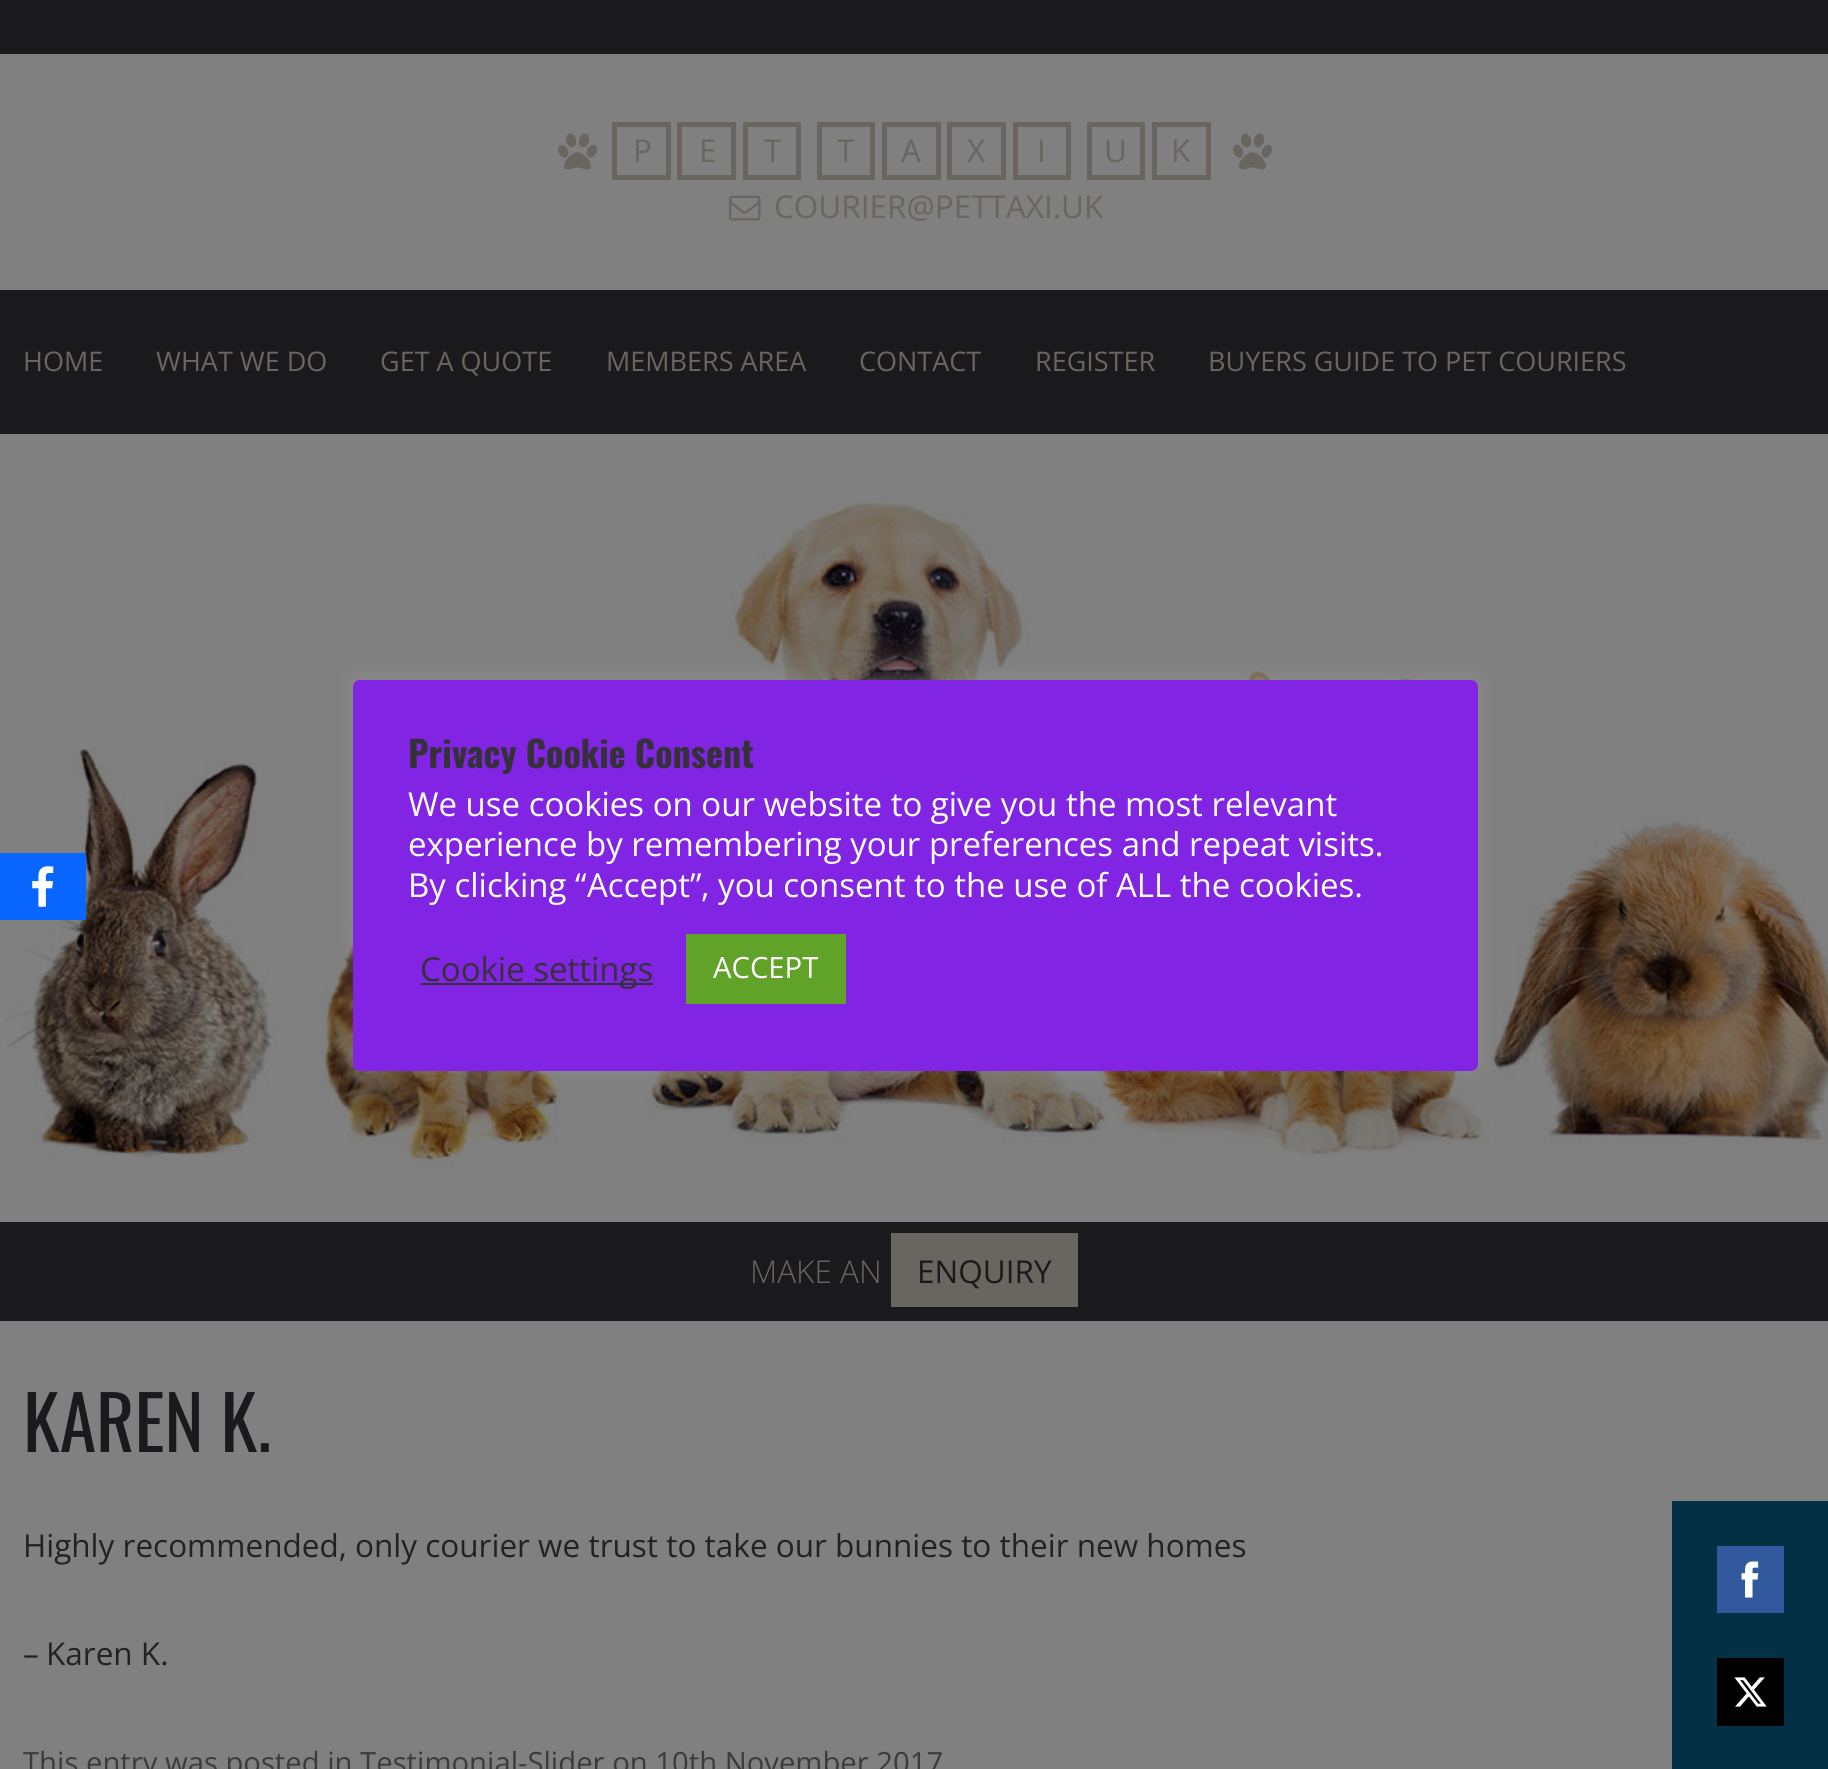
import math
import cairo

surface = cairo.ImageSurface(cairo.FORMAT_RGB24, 1828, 1769)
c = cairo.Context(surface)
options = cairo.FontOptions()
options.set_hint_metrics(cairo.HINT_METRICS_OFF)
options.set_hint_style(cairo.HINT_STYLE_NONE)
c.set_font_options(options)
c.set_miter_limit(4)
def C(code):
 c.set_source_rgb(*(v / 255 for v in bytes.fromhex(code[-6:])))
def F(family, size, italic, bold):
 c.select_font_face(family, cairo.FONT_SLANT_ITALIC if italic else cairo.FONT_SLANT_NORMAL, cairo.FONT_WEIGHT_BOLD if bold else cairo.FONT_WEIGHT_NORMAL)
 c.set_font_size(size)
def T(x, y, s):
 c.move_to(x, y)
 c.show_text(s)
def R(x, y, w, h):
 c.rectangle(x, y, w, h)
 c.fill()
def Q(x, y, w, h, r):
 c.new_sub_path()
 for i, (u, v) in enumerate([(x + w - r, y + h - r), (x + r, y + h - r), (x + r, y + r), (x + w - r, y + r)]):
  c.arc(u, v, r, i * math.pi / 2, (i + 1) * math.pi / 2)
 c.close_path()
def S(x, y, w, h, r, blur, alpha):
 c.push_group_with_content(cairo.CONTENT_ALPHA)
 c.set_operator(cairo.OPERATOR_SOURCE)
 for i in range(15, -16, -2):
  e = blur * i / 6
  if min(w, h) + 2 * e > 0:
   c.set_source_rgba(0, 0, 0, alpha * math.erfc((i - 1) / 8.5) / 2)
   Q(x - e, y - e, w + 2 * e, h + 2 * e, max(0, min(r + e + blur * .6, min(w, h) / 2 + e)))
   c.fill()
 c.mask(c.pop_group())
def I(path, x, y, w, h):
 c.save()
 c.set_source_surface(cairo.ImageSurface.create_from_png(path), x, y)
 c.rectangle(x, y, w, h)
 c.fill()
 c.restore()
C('808080')
c.paint()
C('1a191c')
R(0,0,1828,54)
I('1.png',558,133,39,37)
c.rectangle(614.5,124.5,54,53)
C('696660')
c.set_line_width(5)
c.stroke()
F('Open Sans',31.5,0,0)
T(633,162,'P')
c.rectangle(679.5,124.5,54,53)
c.stroke()
T(699,162,'E')
c.rectangle(745.5,124.5,53,53)
c.stroke()
T(764,162,'T')
c.rectangle(819.5,124.5,53,53)
c.stroke()
T(837,162,'T')
c.rectangle(884.5,124.5,54,53)
c.stroke()
T(901,162,'A')
c.rectangle(949.5,124.5,54,53)
c.stroke()
T(967,162,'X')
c.rectangle(1015.5,124.5,53,53)
c.stroke()
T(1037,162,'I')
c.rectangle(1089.5,124.5,53,53)
c.stroke()
T(1104,162,'U')
c.rectangle(1154.5,124.5,54,53)
c.stroke()
T(1171,162,'K')
I('1.png',1233,133,39,37)
I('2.png',729,195,32,26)
T(774,218,'COURIER@PETTAXI.UK')
C('1a191c')
R(0,290,1828,144)
F('Open Sans',27,0,0)
C('696660')
T(23,371,'HOME')
T(156,371,'WHAT WE DO')
T(380,371,'GET A QUOTE')
T(606,371,'MEMBERS AREA')
T(859,371,'CONTACT')
T(1035,371,'REGISTER')
T(1208,371,'BUYERS GUIDE TO PET COURIERS')
I('3.png',4,500,1824,669)
C('0866ff')
R(0,853,86,67)
I('4.png',32,866,22,41)
C('acabab')
S(353,677,1125,392,7,11,.3)
C('8224e3')
Q(353,680,1125,391,7)
c.fill()
F('Oswald',36,0,1)
C('343138')
T(408,768,'Privacy Cookie Consent')
F('Open Sans',33,0,0)
C('ffffff')
T(408,816,'We use cookies on our website to give you the most relevant')
T(408,856,'experience by remembering your preferences and repeat visits.')
T(408,897,'By clicking')
F('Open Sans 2',33,0,0)
T(575,897,'“')
F('Open Sans',33,0,0)
T(587,897,'Accept')
F('Open Sans 2',33,0,0)
T(690,897,'”')
F('Open Sans',33,0,0)
T(701,897,', you consent to the use of ALL the cookies.')
C('333333')
R(421,983,232,2)
C('343138')
T(420,981,'Cookie settings')
C('61a229')
R(686,934,160,70)
F('Open Sans',29.25,0,0)
C('ffffff')
T(713,978,'ACCEPT')
C('1a191c')
R(0,1222,1828,99)
F('Open Sans Light',31.5,0,0)
C('696660')
T(750,1283,'MAKE AN')
R(891,1233,187,74)
F('Open Sans',31.5,0,0)
C('1a191c')
T(917,1283,'ENQUIRY')
F('Oswald',74,0,0)
T(23,1452,'KAREN K.')
F('Open Sans',31.5,0,0)
C('222222')
T(23,1557,'Highly recommended, only courier we trust to take our bunnies to their new homes')
F('Open Sans 2',31.5,0,0)
T(23,1665,'–')
F('Open Sans',31.5,0,0)
T(46,1665,'Karen K.')
F('Open Sans',29.25,0,0)
C('3b3b3b')
T(23,1773,'This entry was posted in Testimonial-Slider on 10th November 2017')
C('043045')
R(1672,1501,156,268)
C('32599d')
R(1717,1546,67,67)
I('5.png',1741,1561,18,37)
C('000000')
R(1717,1658,67,68)
I('6.png',1734,1677,33,30)
surface.write_to_png('o.png')
